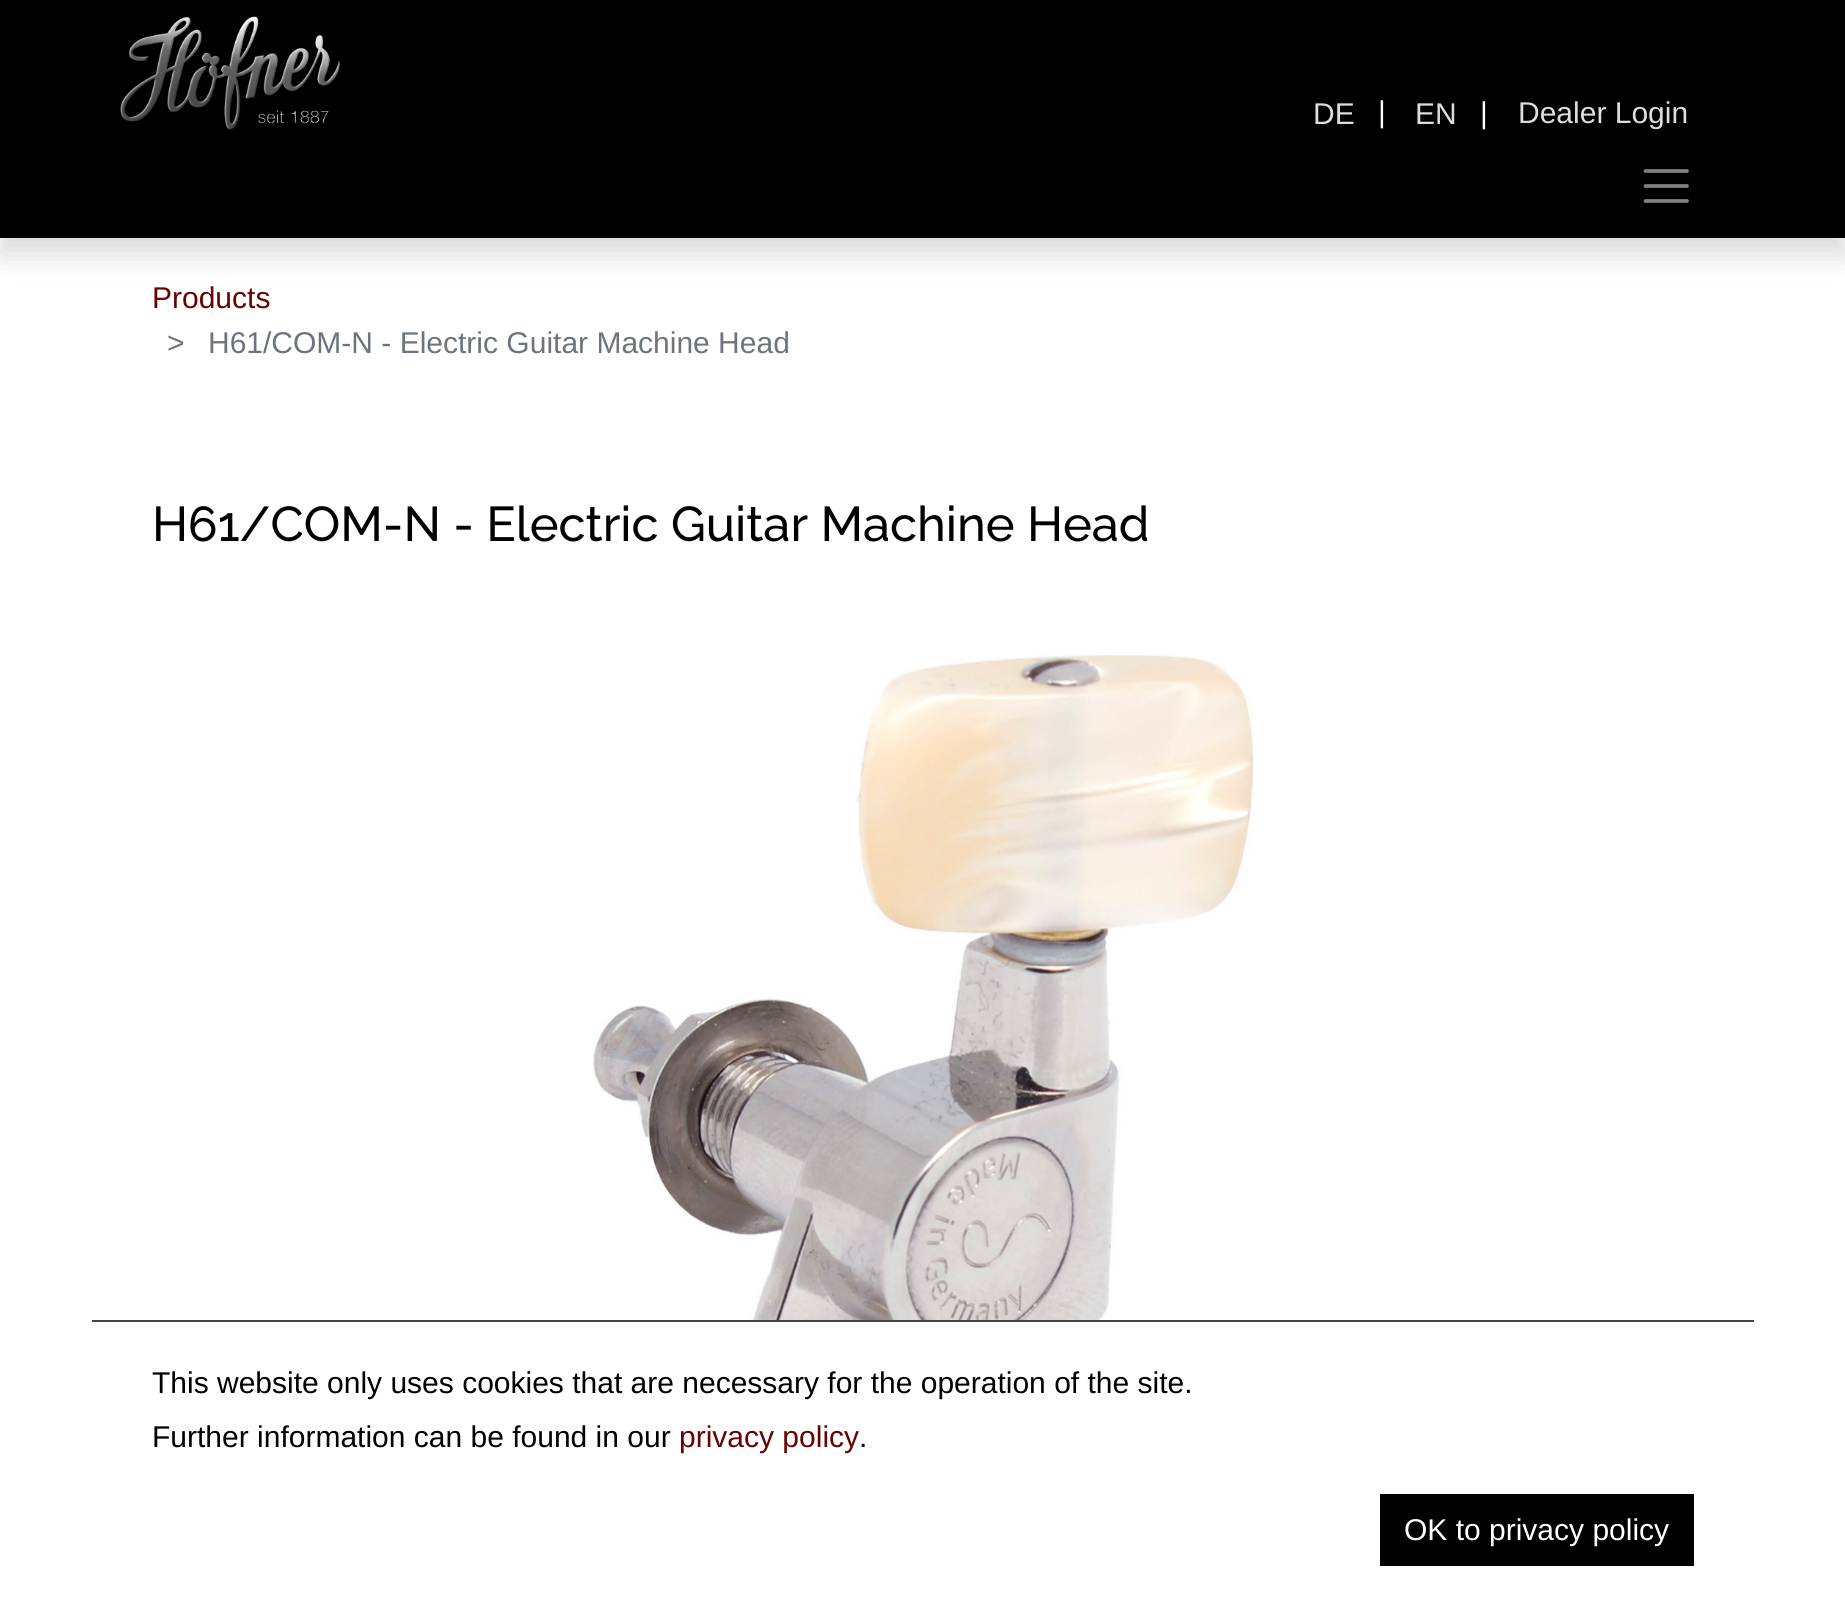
import math
import cairo

surface = cairo.ImageSurface(cairo.FORMAT_RGB24, 1845, 1612)
c = cairo.Context(surface)
options = cairo.FontOptions()
options.set_hint_metrics(cairo.HINT_METRICS_OFF)
options.set_hint_style(cairo.HINT_STYLE_NONE)
c.set_font_options(options)
c.set_miter_limit(4)
def C(code):
 c.set_source_rgb(*(v / 255 for v in bytes.fromhex(code[-6:])))
def F(family, size, italic, bold):
 c.select_font_face(family, cairo.FONT_SLANT_ITALIC if italic else cairo.FONT_SLANT_NORMAL, cairo.FONT_WEIGHT_BOLD if bold else cairo.FONT_WEIGHT_NORMAL)
 c.set_font_size(size)
def T(x, y, s):
 c.move_to(x, y)
 c.show_text(s)
def R(x, y, w, h):
 c.rectangle(x, y, w, h)
 c.fill()
def Q(x, y, w, h, r):
 c.new_sub_path()
 for i, (u, v) in enumerate([(x + w - r, y + h - r), (x + r, y + h - r), (x + r, y + r), (x + w - r, y + r)]):
  c.arc(u, v, r, i * math.pi / 2, (i + 1) * math.pi / 2)
 c.close_path()
def S(x, y, w, h, r, blur, alpha):
 c.push_group_with_content(cairo.CONTENT_ALPHA)
 c.set_operator(cairo.OPERATOR_SOURCE)
 for i in range(15, -16, -2):
  e = blur * i / 6
  if min(w, h) + 2 * e > 0:
   c.set_source_rgba(0, 0, 0, alpha * math.erfc((i - 1) / 8.5) / 2)
   Q(x - e, y - e, w + 2 * e, h + 2 * e, max(0, min(r + e + blur * .6, min(w, h) / 2 + e)))
   c.fill()
 c.mask(c.pop_group())
def I(path, x, y, w, h):
 c.save()
 c.set_source_surface(cairo.ImageSurface.create_from_png(path), x, y)
 c.rectangle(x, y, w, h)
 c.fill()
 c.restore()
C('ffffff')
c.paint()
C('000000')
R(0,0,1845,148)
C('000000')
S(0,164,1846,90,0,15,.15)
C('000000')
R(0,148,1845,90)
I('1.png',120,16,220,114)
c.new_path()
c.move_to(1645.5,171)
c.line_to(1687,171)
c.move_to(1645.5,186)
c.line_to(1687,186)
c.move_to(1645.5,201)
c.line_to(1687,201)
C('808080')
c.set_line_width(3.8)
c.set_line_cap(cairo.LINE_CAP_ROUND)
c.stroke()
F('Liberation Sans',30,0,0)
C('dddddd')
T(1313,124,'DE')
C('ffffff')
T(1378,122,'|')
C('dddddd')
T(1415,124,'EN')
C('ffffff')
T(1480,123,'|')
C('dddddd')
T(1518,123,'Dealer Login')
C('680202')
T(152,308,'Products')
C('6c757d')
T(167,353,'>')
T(208,353,'H61/COM-N - Electric Guitar Machine Head')
F('Raleway Medium',48.75,0,0)
C('000000')
T(152,541,'H61/COM-N - Electric Guitar Machine Head')
I('2.png',593,654,661,666)
C('444444')
R(92,1320,1662,2)
F('Liberation Sans',30,0,0)
C('000000')
T(152,1393,'This website only uses cookies that are necessary for the operation of the site.')
T(152,1447,'Further information can be found in our')
C('680202')
T(679,1447,'privacy policy')
C('000000')
T(859,1447,'.')
R(1380,1494,314,72)
C('ffffff')
T(1404,1540,'OK to privacy policy')
surface.write_to_png('o.png')
